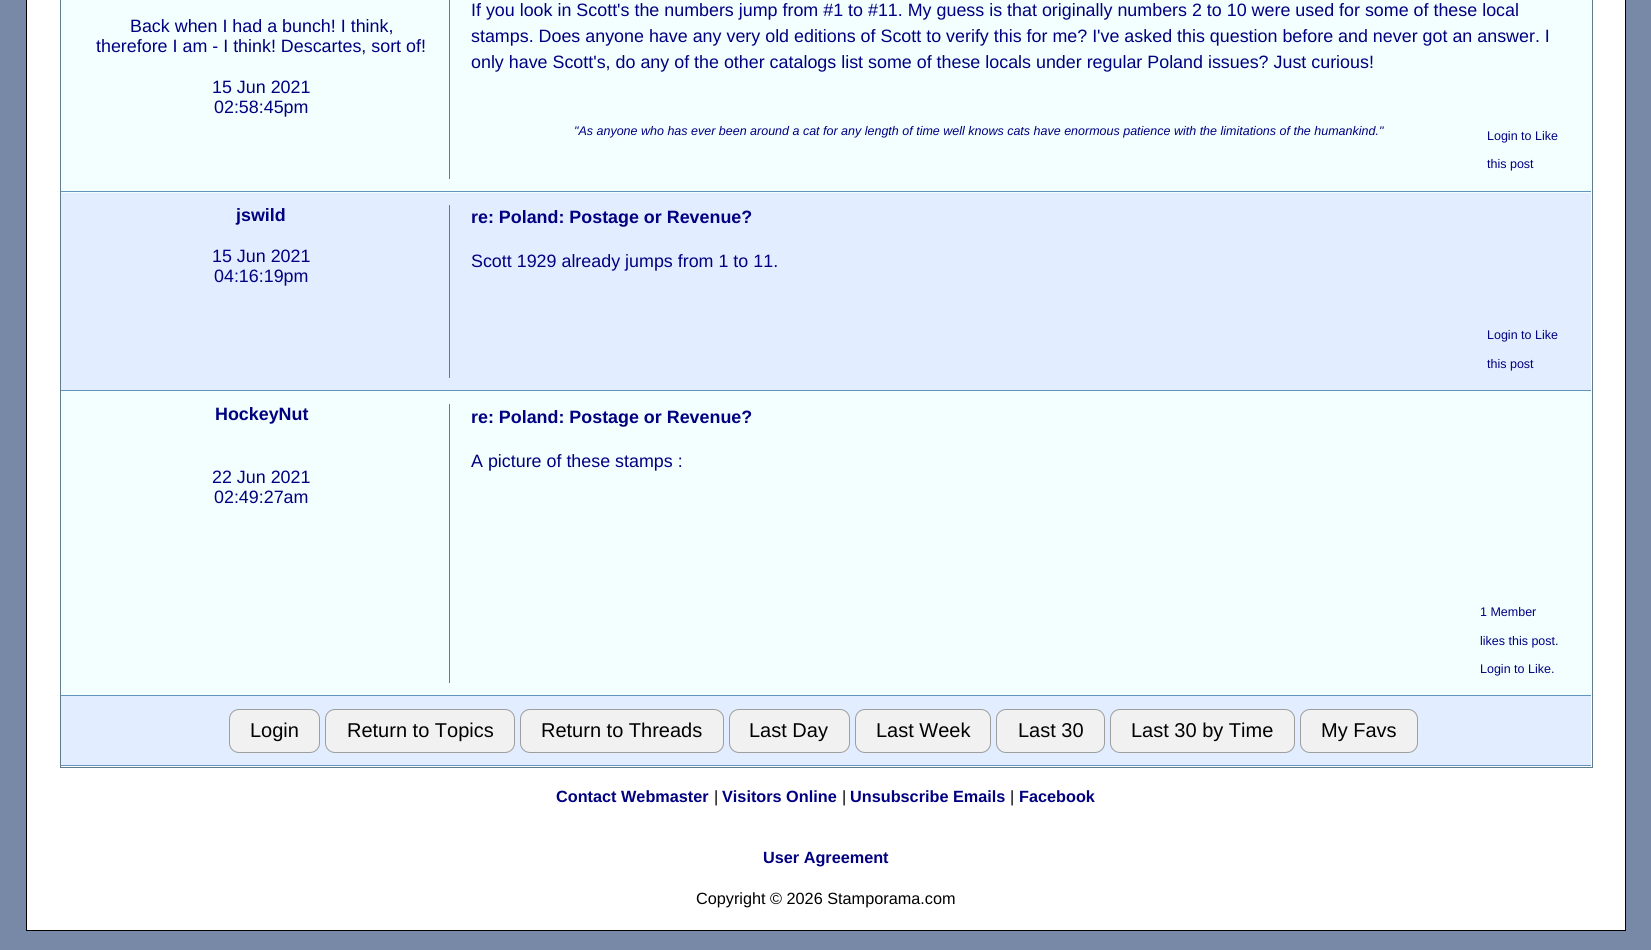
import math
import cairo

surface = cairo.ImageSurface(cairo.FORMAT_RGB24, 1651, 950)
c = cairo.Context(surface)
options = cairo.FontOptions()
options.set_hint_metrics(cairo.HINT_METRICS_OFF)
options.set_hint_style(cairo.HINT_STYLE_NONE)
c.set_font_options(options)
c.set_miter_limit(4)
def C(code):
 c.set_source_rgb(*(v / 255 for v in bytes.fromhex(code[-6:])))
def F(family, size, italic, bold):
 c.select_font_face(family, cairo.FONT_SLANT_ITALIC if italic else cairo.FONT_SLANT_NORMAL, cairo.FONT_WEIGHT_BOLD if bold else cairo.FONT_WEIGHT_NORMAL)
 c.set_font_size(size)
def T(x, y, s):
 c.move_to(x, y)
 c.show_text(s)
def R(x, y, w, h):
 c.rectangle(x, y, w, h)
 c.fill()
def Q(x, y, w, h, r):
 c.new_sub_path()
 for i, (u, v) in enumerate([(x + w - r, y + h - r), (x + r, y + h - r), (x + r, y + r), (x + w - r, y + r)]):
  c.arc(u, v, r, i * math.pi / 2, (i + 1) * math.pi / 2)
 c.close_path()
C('7789a6')
c.paint()
C('ffffff')
c.rectangle(26.5,-.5,1599,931)
c.fill_preserve()
C('000000')
c.set_line_width(1)
c.stroke()
c.rectangle(60.5,-.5,1532,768)
C('607d8b')
c.stroke()
C('f2fffe')
R(61,0,1530,193)
C('6394bd')
R(61,191,1530,1)
F('Liberation Sans',17.88,0,0)
C('000080')
T(130,32,'Back when I had a bunch! I think,')
T(96,52,'therefore I am - I think! Descartes, sort of!')
T(212,93,'15 Jun 2021')
T(214,113,'02:58:45pm')
C('607d8b')
R(449,0,1,179)
C('000080')
T(471,16,'If you look in Scott\'s the numbers jump from #1 to #11. My guess is that originally numbers 2 to 10 were used for some of these local')
T(471,42,'stamps. Does anyone have any very old editions of Scott to verify this for me? I\'ve asked this question before and never got an answer. I')
T(471,68,'only have Scott\'s, do any of the other catalogs list some of these locals under regular Poland issues? Just curious!')
F('Liberation Sans',12.5,1,0)
T(574,135,'"As anyone who has ever been around a cat for any length of time well knows cats have enormous patience with the limitations of the humankind."')
F('Liberation Sans',12.5,0,0)
T(1487,140,'Login to Like')
T(1487,168,'this post')
C('e2edff')
R(61,193,1530,197)
C('6394bd')
R(61,390,1530,1)
F('Liberation Sans',17.88,0,1)
C('000080')
T(236,221,'jswild')
F('Liberation Sans',17.88,0,0)
T(212,262,'15 Jun 2021')
T(214,282,'04:16:19pm')
C('607d8b')
R(449,205,1,173)
F('Liberation Sans',17.88,0,1)
C('000080')
T(471,223,'re: Poland: Postage or Revenue?')
F('Liberation Sans',17.88,0,0)
T(471,267,'Scott 1929 already jumps from 1 to 11.')
F('Liberation Sans',12.5,0,0)
T(1487,339,'Login to Like')
T(1487,368,'this post')
C('f2fffe')
R(61,391,1530,304)
C('6394bd')
R(61,695,1530,1)
F('Liberation Sans',17.88,0,1)
C('000080')
T(215,420,'HockeyNut')
F('Liberation Sans',17.88,0,0)
T(212,483,'22 Jun 2021')
T(214,503,'02:49:27am')
C('607d8b')
R(449,404,1,279)
F('Liberation Sans',17.88,0,1)
C('000080')
T(471,423,'re: Poland: Postage or Revenue?')
F('Liberation Sans',17.88,0,0)
T(471,467,'A picture of these stamps :')
F('Liberation Sans',12.5,0,0)
T(1480,616,'1 Member')
T(1480,645,'likes this post.')
T(1480,673,'Login to Like.')
C('e2edff')
R(61,696,1530,69)
C('6394bd')
R(61,765,1530,1)
C('f1f1f1')
Q(229.5,709.5,90,43,9.5)
c.fill_preserve()
C('9e9e9e')
c.stroke()
F('Liberation Sans',20,0,0)
C('000000')
T(250,737,'Login')
C('f1f1f1')
Q(325.5,709.5,189,43,9.5)
c.fill_preserve()
C('9e9e9e')
c.stroke()
C('000000')
T(347,737,'Return to Topics')
C('f1f1f1')
Q(520.5,709.5,203,43,9.5)
c.fill_preserve()
C('9e9e9e')
c.stroke()
C('000000')
T(541,737,'Return to Threads')
C('f1f1f1')
Q(729.5,709.5,120,43,9.5)
c.fill_preserve()
C('9e9e9e')
c.stroke()
C('000000')
T(749,737,'Last Day')
C('f1f1f1')
Q(855.5,709.5,135,43,9.5)
c.fill_preserve()
C('9e9e9e')
c.stroke()
C('000000')
T(876,737,'Last Week')
C('f1f1f1')
Q(996.5,709.5,108,43,9.5)
c.fill_preserve()
C('9e9e9e')
c.stroke()
C('000000')
T(1018,737,'Last 30')
C('f1f1f1')
Q(1110.5,709.5,184,43,9.5)
c.fill_preserve()
C('9e9e9e')
c.stroke()
C('000000')
T(1131,737,'Last 30 by Time')
C('f1f1f1')
Q(1300.5,709.5,117,43,9.5)
c.fill_preserve()
C('9e9e9e')
c.stroke()
C('000000')
T(1321,737,'My Favs')
F('Liberation Sans',16.25,0,1)
C('000080')
T(556,802,'Contact Webmaster')
F('Liberation Sans',16.25,0,0)
C('000000')
T(714,802,'|')
F('Liberation Sans',16.25,0,1)
C('000080')
T(722,802,'Visitors Online')
F('Liberation Sans',16.25,0,0)
C('000000')
T(842,802,'|')
F('Liberation Sans',16.25,0,1)
C('000080')
T(850,802,'Unsubscribe Emails')
F('Liberation Sans',16.25,0,0)
C('000000')
T(1010,802,'|')
F('Liberation Sans',16.25,0,1)
C('000080')
T(1019,802,'Facebook')
T(763,863,'User Agreement')
F('Liberation Sans',16.25,0,0)
C('000000')
T(696,904,'Copyright © 2026 Stamporama.com')
surface.write_to_png('o.png')
